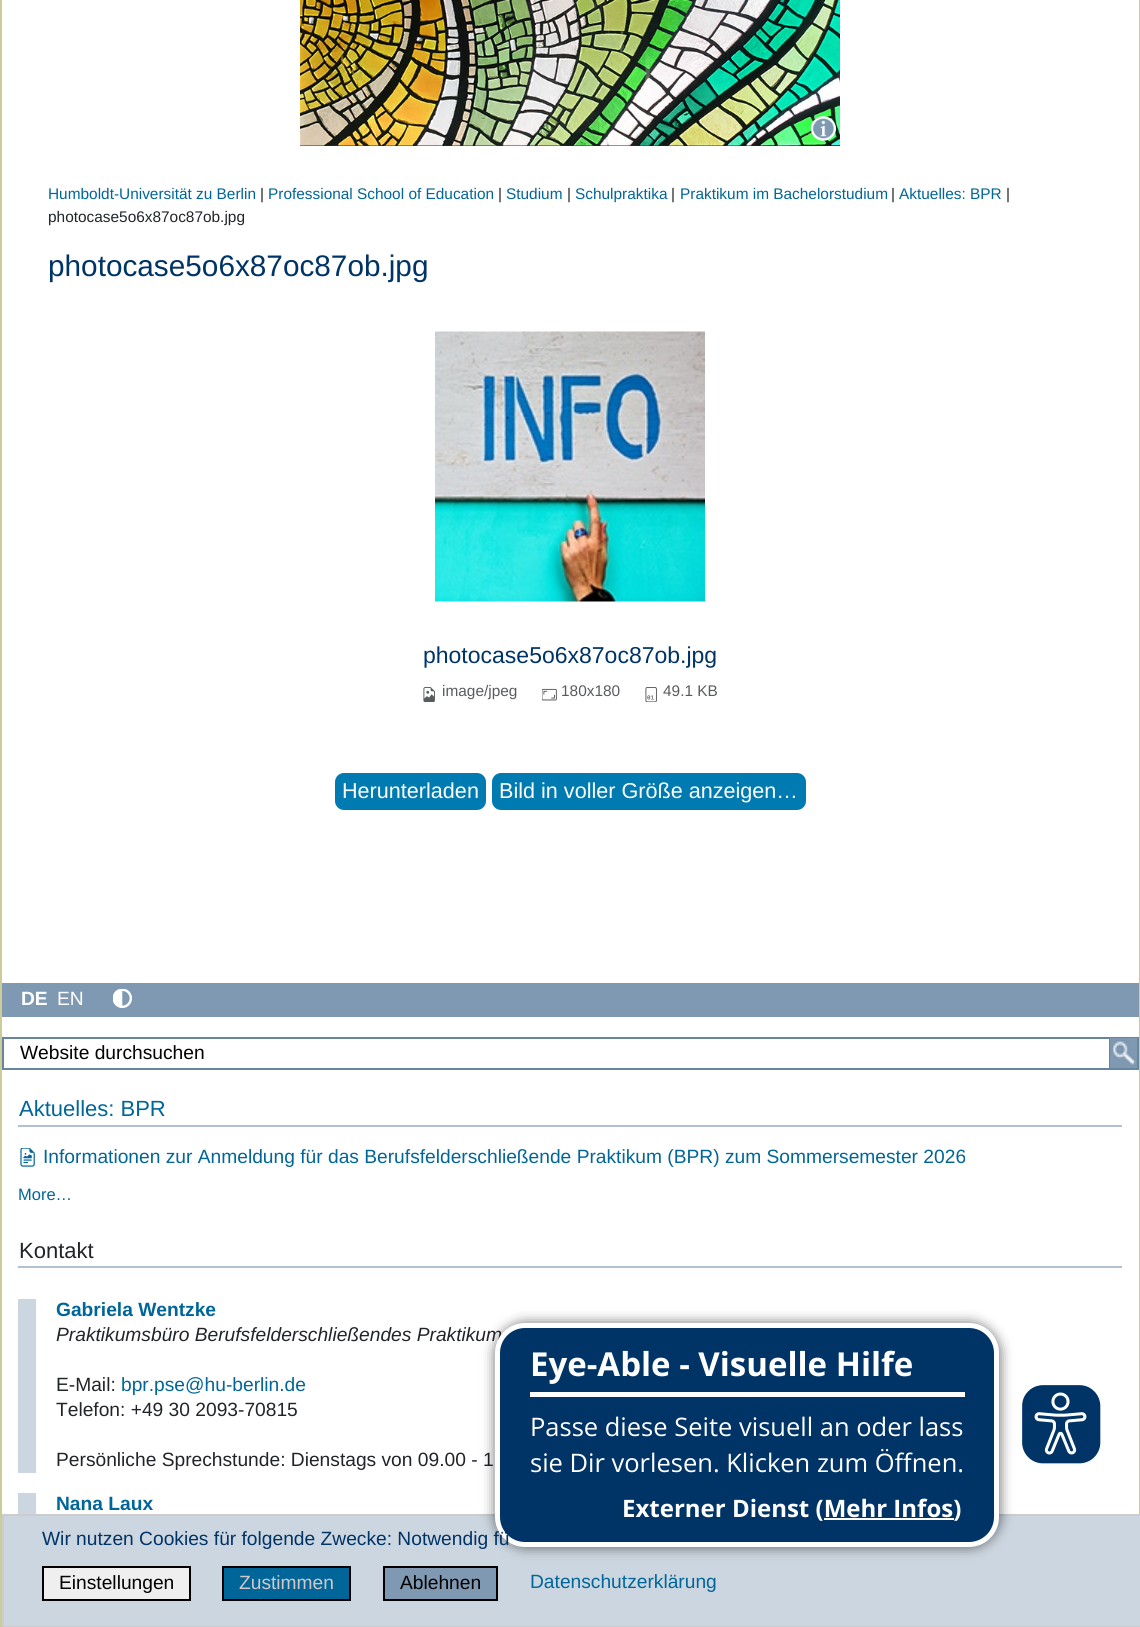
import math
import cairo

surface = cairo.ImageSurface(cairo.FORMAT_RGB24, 1140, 1627)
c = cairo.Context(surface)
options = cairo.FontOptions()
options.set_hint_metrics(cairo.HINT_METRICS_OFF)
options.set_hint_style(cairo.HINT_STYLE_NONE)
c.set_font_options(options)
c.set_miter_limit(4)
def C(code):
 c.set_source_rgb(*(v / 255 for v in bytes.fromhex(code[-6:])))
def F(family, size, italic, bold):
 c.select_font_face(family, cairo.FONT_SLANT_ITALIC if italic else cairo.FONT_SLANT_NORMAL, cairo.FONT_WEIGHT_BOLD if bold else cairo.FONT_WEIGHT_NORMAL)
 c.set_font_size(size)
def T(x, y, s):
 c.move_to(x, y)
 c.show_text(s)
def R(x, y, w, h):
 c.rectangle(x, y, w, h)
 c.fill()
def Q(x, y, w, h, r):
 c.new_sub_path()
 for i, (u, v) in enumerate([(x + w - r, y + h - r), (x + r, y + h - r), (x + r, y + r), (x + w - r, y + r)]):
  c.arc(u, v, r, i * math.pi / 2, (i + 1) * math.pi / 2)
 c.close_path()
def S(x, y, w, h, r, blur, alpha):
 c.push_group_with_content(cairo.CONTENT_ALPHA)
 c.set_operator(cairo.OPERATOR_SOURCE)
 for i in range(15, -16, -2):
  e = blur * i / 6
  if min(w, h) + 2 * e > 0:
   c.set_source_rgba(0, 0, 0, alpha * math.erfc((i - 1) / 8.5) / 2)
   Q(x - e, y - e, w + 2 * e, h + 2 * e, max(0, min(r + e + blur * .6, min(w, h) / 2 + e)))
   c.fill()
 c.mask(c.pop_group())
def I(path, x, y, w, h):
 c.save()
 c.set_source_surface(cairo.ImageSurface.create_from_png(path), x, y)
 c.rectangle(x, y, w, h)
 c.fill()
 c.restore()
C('ffffff')
c.paint()
C('003366')
R(300,145,540,1)
I('1.png',300,0,540,146)
I('2.png',810,116,26,25)
C('cccc99')
R(1139,0,1,1514)
R(0,0,2,1627)
F('Liberation Sans',15.4,0,0)
C('006699')
T(48,199,'Humboldt-Universität zu Berlin')
C('212529')
T(260,199,'|')
C('006699')
T(268,199,'Professional School of Education')
C('212529')
T(498,199,'|')
C('006699')
T(506,199,'Studium')
C('212529')
T(567,199,'|')
C('006699')
T(575,199,'Schulpraktika')
C('212529')
T(671,199,'|')
C('006699')
T(680,199,'Praktikum im Bachelorstudium')
C('212529')
T(891,199,'|')
C('006699')
T(899,199,'Aktuelles: BPR')
C('212529')
T(1006,199,'|')
T(48,222,'photocase5o6x87oc87ob.jpg')
F('Liberation Sans',29.75,0,0)
C('003366')
T(48,276,'photocase5o6x87oc87ob.jpg')
I('3.png',435,331,270,271)
F('Liberation Sans',23,0,0)
T(423,663,'photocase5o6x87oc87ob.jpg')
I('4.png',423,687,12,15)
F('Liberation Sans',15.4,0,0)
C('595c5f')
T(442,696,'image/jpeg')
I('5.png',542,688,15,13)
T(561,696,'180x180')
I('6.png',645,687,12,15)
T(663,696,'49.1 KB')
C('007bb1')
Q(335,773,151,37,9)
c.fill()
F('Liberation Sans',21.6,0,0)
C('ffffff')
T(342,798,'Herunterladen')
C('007bb1')
Q(492,773,314,37,9)
c.fill()
C('ffffff')
T(499,798,'Bild in voller Größe anzeigen…')
C('8099b2')
R(2,983,1137,34)
F('Liberation Sans',19.2,0,1)
C('ffffff')
T(21,1005,'DE')
F('Liberation Sans',19.2,0,0)
T(57,1005,'EN')
I('7.png',113,989,19,19)
c.rectangle(3,1038,1135,31)
C('6685a3')
c.stroke()
C('000000')
T(20,1059,'Website durchsuchen')
c.rectangle(1110,1038,28,31)
C('6685a3')
c.stroke()
I('8.png',1110,1038,27,30)
C('b2c1d1')
R(18,1125,1104,2)
F('Liberation Sans',22,0,0)
C('006699')
T(19,1116,'Aktuelles: BPR')
I('9.png',20,1148,15,19)
F('Liberation Sans',19.2,0,0)
T(43,1163,'Informationen zur Anmeldung für das Berufsfelderschließende Praktikum (BPR) zum Sommersemester 2026')
F('Liberation Sans',16.5,0,0)
T(18,1200,'More…')
C('b2c1d1')
R(18,1266,1104,2)
F('Liberation Sans',22,0,0)
C('212529')
T(19,1258,'Kontakt')
C('ccd6e0')
R(18,1299,18,174)
F('Liberation Sans',19.2,0,1)
C('006699')
T(56,1316,'Gabriela Wentzke')
F('Liberation Sans',19.2,1,0)
C('212529')
T(56,1341,'Praktikumsbüro Berufsfelderschließendes Praktikum')
F('Liberation Sans',19.2,0,0)
T(56,1391,'E-Mail:')
C('006699')
T(121,1391,'bpr.pse@hu-berlin.de')
C('212529')
T(56,1416,'Telefon: +49 30 2093-70815')
T(56,1466,'Persönliche Sprechstunde: Dienstags von 09.00 - 1')
C('ccd6e0')
R(18,1493,18,21)
F('Liberation Sans',19.2,0,1)
C('006699')
T(56,1510,'Nana Laux')
C('ccd6e0')
c.rectangle(3,1515,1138,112)
c.fill_preserve()
C('cccccc')
c.stroke()
C('8099b2')
c.rectangle(384,1567,113,33)
c.fill_preserve()
C('000000')
c.stroke()
C('000000')
S(494,1322,507,226,32,6,.5)
C('003366')
Q(497.5,1325.5,499,219,27.5)
c.fill_preserve()
C('ffffff')
c.set_line_width(5)
c.stroke()
R(530,1392,435,5)
F('Open Sans',33,0,1)
T(530,1376,'Eye-Able - Visuelle Hilfe')
F('Open Sans',25.5,0,0)
T(530,1436,'Passe diese Seite visuell an oder lass')
T(530,1472,'sie Dir vorlesen. Klicken zum Öffnen.')
F('Open Sans',24,0,1)
T(622,1517,'Externer Dienst (Mehr Infos)')
R(824,1518,130,2)
I('10.png',1022,1385,79,79)
F('Liberation Sans',19.2,0,0)
C('003366')
T(42,1545,'Wir nutzen Cookies für folgende Zwecke: Notwendig fü')
C('efefef')
c.rectangle(43,1567,147,33)
c.fill_preserve()
C('000000')
c.set_line_width(2)
c.stroke()
T(59,1589,'Einstellungen')
C('006699')
c.rectangle(223,1567,127,33)
c.fill_preserve()
C('000000')
c.stroke()
C('d5c7c7')
T(239,1589,'Zustimmen')
C('000000')
T(400,1589,'Ablehnen')
C('006699')
T(530,1588,'Datenschutzerklärung')
surface.write_to_png('o.png')
